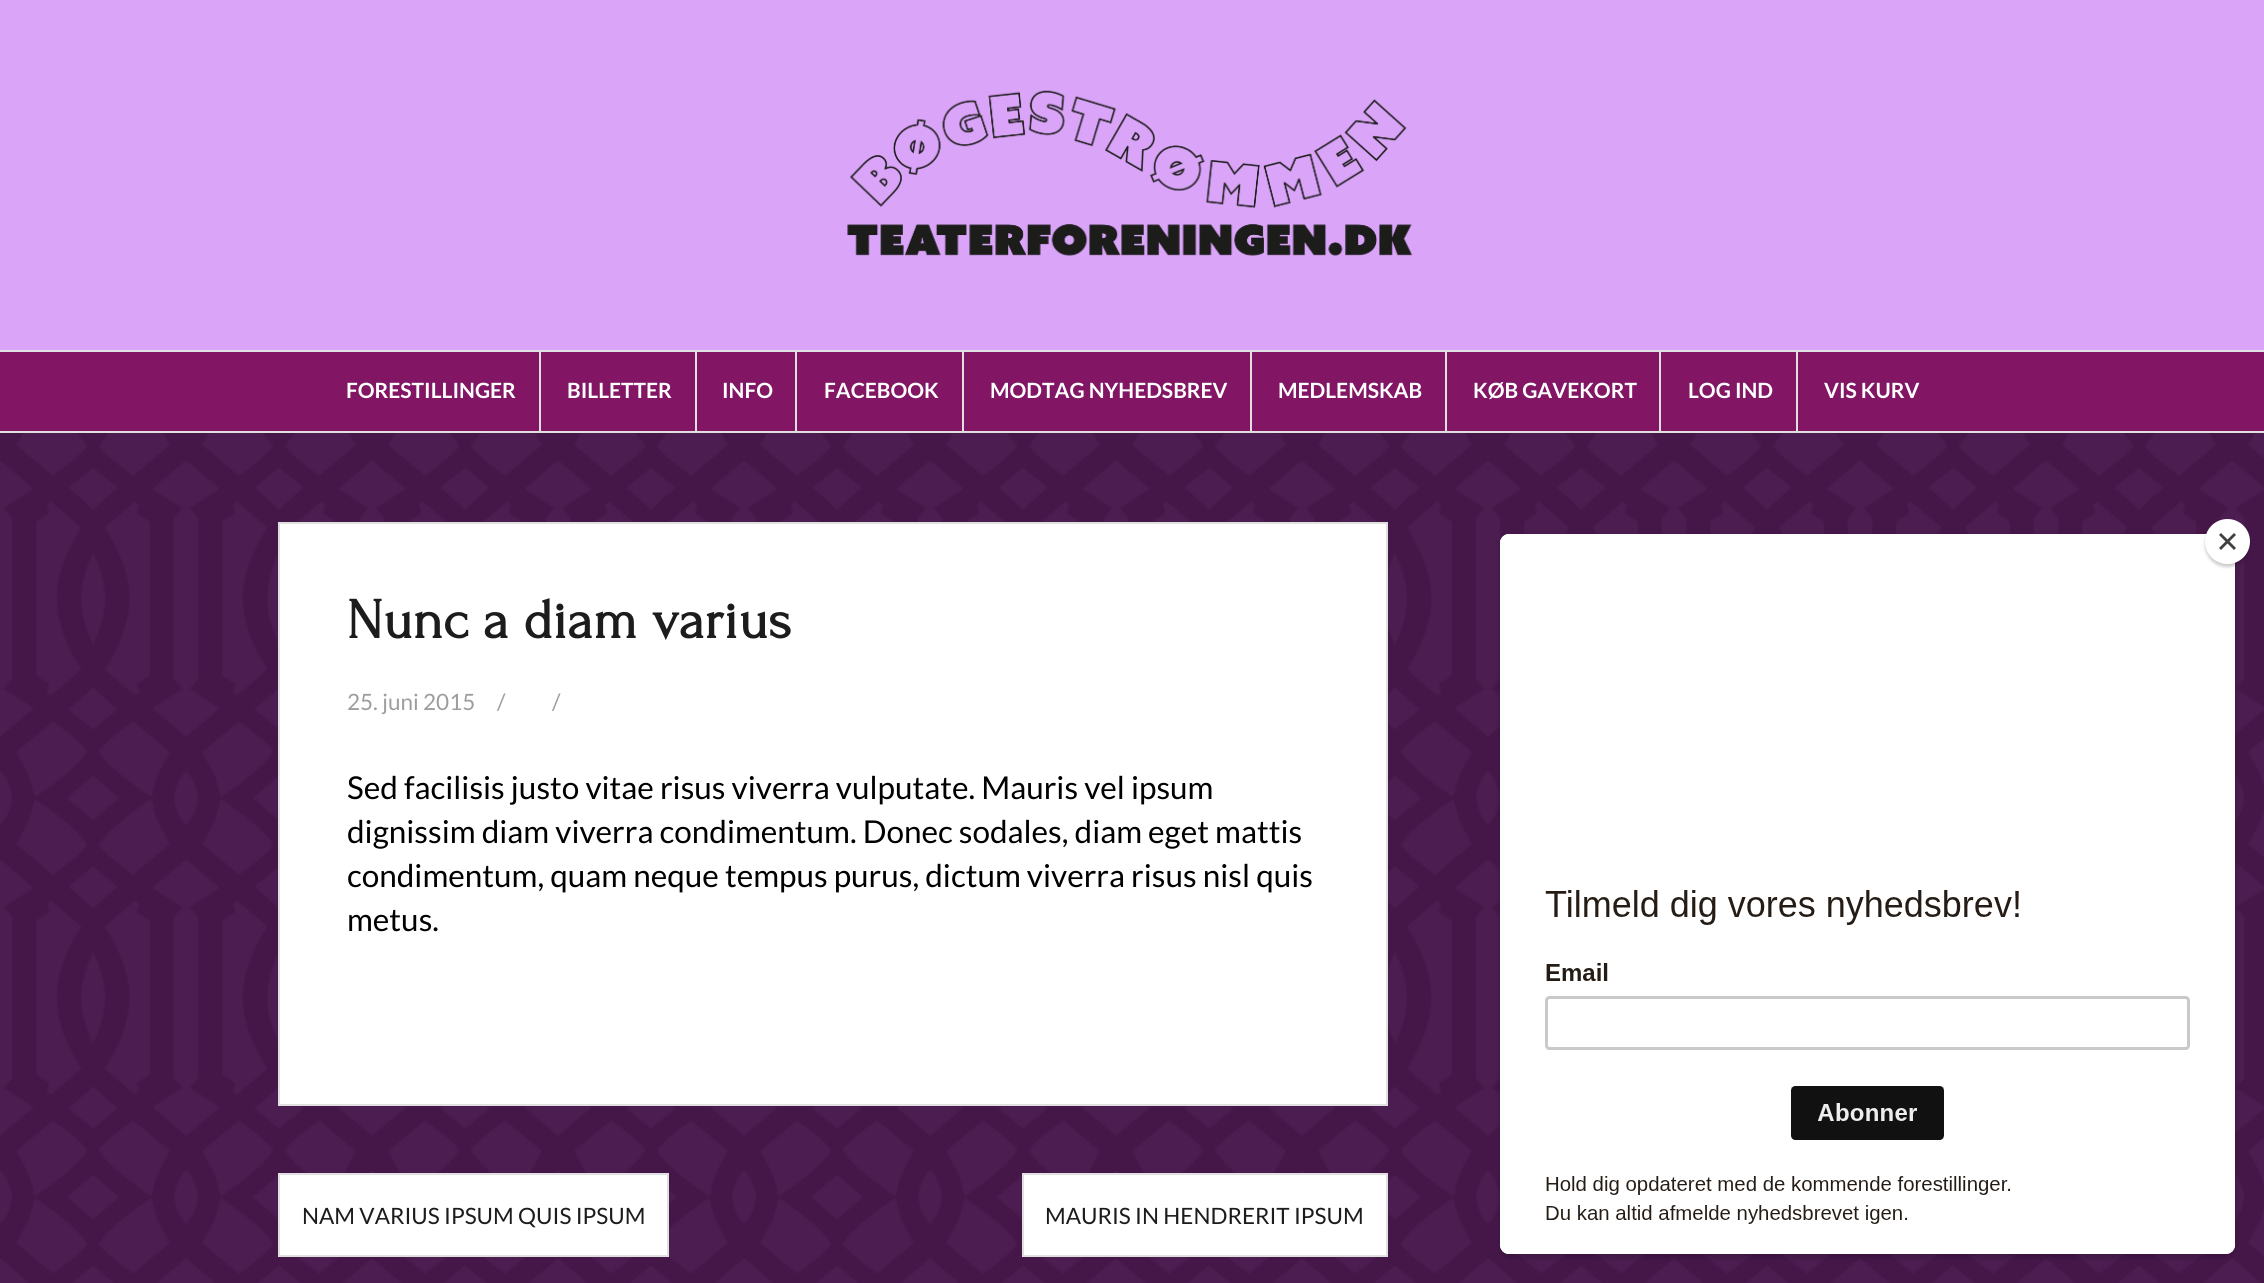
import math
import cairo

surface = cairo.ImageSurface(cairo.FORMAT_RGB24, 2264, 1283)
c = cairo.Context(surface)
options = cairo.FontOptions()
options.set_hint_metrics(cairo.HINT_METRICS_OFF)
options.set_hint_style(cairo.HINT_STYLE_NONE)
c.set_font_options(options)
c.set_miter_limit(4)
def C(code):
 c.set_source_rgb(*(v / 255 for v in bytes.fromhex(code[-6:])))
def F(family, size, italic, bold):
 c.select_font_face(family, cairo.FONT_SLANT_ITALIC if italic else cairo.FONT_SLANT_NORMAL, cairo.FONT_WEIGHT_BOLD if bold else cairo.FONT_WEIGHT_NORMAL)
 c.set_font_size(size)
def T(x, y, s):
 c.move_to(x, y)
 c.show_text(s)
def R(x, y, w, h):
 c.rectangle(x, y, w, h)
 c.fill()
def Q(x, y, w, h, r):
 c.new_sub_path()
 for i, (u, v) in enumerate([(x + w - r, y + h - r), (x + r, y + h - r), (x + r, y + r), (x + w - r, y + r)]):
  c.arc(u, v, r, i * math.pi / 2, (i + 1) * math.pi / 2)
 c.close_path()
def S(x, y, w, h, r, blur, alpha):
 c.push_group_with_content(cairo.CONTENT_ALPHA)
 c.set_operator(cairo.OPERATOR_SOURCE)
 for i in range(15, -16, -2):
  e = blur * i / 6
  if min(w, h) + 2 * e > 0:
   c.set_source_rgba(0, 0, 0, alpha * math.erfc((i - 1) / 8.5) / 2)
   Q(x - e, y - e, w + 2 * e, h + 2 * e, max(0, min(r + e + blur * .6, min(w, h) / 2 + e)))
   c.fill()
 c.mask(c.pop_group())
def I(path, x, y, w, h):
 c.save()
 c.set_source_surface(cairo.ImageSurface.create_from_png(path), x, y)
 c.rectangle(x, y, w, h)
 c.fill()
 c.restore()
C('ffffff')
c.paint()
I('1.png',0,433,2264,850)
C('daa4f9')
R(0,0,2264,350)
I('2.png',847,90,566,166)
C('821665')
R(0,352,2264,79)
C('e0e0e0')
R(0,350,2264,2)
R(0,431,2264,2)
R(539,351,2,80)
F('Lato',21,0,1)
C('ffffff')
T(346,398,'FORESTILLINGER')
C('e0e0e0')
R(695,351,2,80)
C('ffffff')
T(567,398,'BILLETTER')
C('e0e0e0')
R(795,351,2,80)
C('ffffff')
T(722,398,'INFO')
C('e0e0e0')
R(962,351,2,80)
C('ffffff')
T(824,398,'FACEBOOK')
C('e0e0e0')
R(1250,351,2,80)
C('ffffff')
T(990,398,'MODTAG NYHEDSBREV')
C('e0e0e0')
R(1445,351,2,80)
C('ffffff')
T(1278,398,'MEDLEMSKAB')
C('e0e0e0')
R(1659,351,2,80)
C('ffffff')
T(1473,398,'KØB GAVEKORT')
C('e0e0e0')
R(1796,351,2,80)
C('ffffff')
T(1688,398,'LOG IND')
T(1824,398,'VIS KURV')
c.rectangle(279,523,1108,582)
c.fill_preserve()
C('e0e0e0')
c.stroke()
F('Forum',57,0,1)
C('1c1c1c')
T(347,638,'Nunc a diam varius')
F('Lato',22.5,0,0)
C('9d9d9d')
T(347,710,'25. juni 2015')
T(497,710,'/')
T(552,710,'/')
F('Lato',31.5,0,0)
C('000000')
T(347,799,'Sed facilisis justo vitae risus viverra vulputate. Mauris vel ipsum')
T(347,843,'dignissim diam viverra condimentum. Donec sodales, diam eget mattis')
T(347,887,'condimentum, quam neque tempus purus, dictum viverra risus nisl quis')
T(347,931,'metus.')
C('ffffff')
c.rectangle(279,1174,389,82)
c.fill_preserve()
C('e0e0e0')
c.stroke()
F('Lato',22.5,0,0)
C('1c1c1c')
T(302,1224,'NAM VARIUS IPSUM QUIS IPSUM')
C('ffffff')
c.rectangle(1023,1174,364,82)
c.fill_preserve()
C('e0e0e0')
c.stroke()
C('1c1c1c')
T(1045,1224,'MAURIS IN HENDRERIT IPSUM')
C('000000')
S(1500,537,735,720,9,3,.2)
C('ffffff')
Q(1500,534,735,720,9)
c.fill()
I('3.png',1500,534,735,720)
C('000000')
S(2205,522,45,45,22.5,1.5,.2)
C('ffffff')
c.arc(2227.5,541.5,22.5,0,2 * math.pi)
c.fill()
C('414141')
c.new_path()
c.move_to(2234,533)
c.line_to(2236,535)
c.line_to(2221,550)
c.line_to(2219,548)
c.close_path()
c.fill()
c.new_path()
c.move_to(2219,535)
c.line_to(2221,533)
c.line_to(2236,548)
c.line_to(2234,550)
c.close_path()
c.fill()
surface.write_to_png('o.png')
